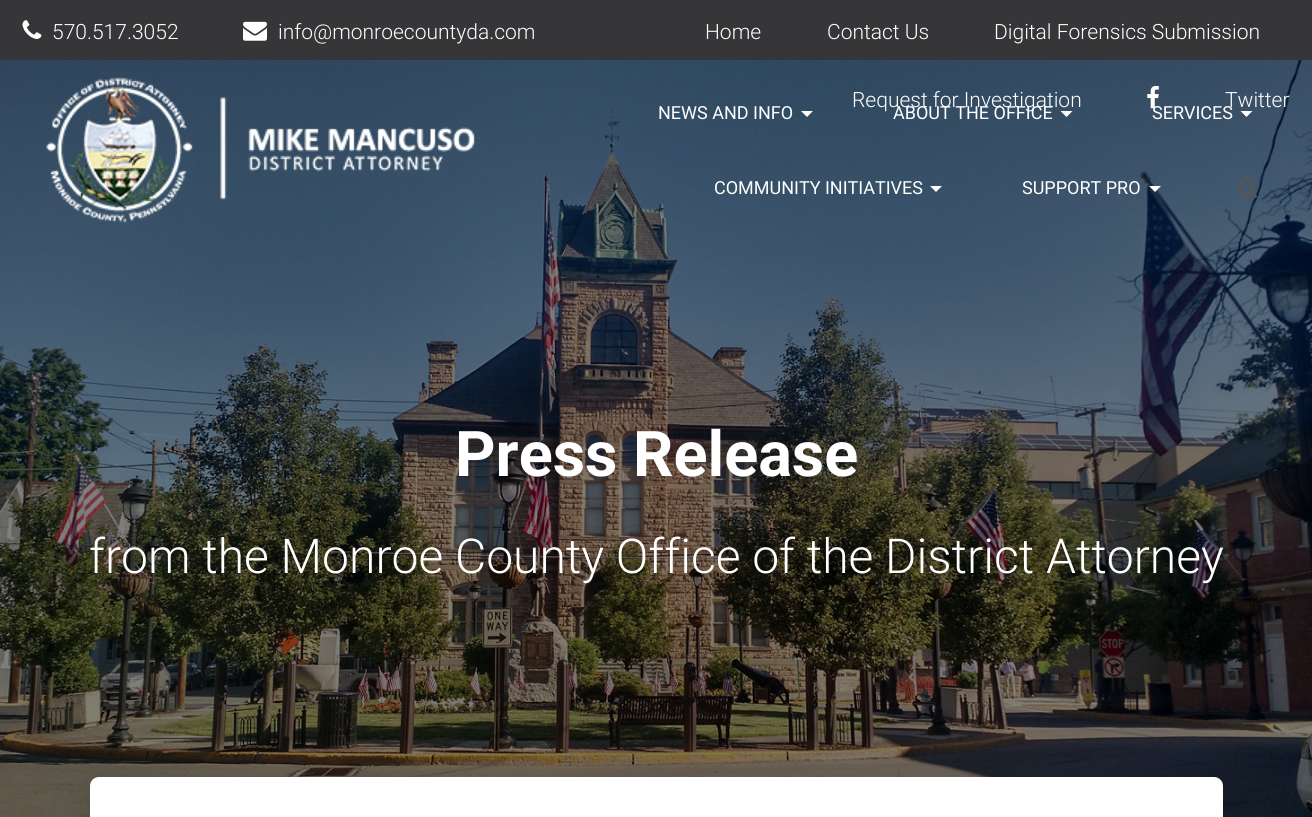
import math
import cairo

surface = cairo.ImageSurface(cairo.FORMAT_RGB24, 1312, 817)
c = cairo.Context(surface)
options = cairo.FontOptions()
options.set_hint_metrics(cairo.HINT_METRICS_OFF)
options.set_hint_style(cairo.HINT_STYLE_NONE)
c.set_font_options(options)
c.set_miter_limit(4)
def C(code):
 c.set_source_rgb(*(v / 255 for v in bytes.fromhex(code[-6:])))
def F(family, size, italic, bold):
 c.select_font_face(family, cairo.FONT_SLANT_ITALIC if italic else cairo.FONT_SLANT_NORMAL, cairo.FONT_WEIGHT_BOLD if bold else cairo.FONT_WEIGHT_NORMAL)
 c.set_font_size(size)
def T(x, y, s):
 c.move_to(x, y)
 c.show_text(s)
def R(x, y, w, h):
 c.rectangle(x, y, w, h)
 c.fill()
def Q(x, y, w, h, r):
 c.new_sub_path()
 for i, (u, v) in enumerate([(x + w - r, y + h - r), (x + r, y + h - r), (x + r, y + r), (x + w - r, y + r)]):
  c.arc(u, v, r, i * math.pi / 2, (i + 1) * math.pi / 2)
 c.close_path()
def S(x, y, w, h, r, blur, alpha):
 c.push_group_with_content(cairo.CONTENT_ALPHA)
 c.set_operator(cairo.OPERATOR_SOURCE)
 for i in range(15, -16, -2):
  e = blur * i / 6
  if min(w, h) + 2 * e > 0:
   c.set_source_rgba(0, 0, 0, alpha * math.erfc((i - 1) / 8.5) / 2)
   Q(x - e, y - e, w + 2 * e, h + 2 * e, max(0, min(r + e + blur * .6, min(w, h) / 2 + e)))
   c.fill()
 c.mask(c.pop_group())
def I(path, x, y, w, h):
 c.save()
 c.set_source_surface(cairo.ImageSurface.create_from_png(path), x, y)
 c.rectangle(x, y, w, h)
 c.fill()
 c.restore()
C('ffffff')
c.paint()
C('363537')
R(0,0,1312,60)
I('1.png',22,20,20,19)
F('Roboto Light',21,0,0)
C('ffffff')
T(52,39,'570.517.3052')
I('2.png',243,21,24,20)
T(278,39,'info@monroecountyda.com')
T(705,39,'Home')
T(827,39,'Contact Us')
T(994,39,'Digital Forensics Submission')
I('6.png',0,60,1312,757)
T(852,107,'Request for Investigation')
I('3.png',1147,85,12,24)
T(1225,107,'Twitter')
I('4.png',46,77,429,146)
F('Roboto',18,0,0)
T(658,119,'NEWS AND INFO')
c.new_path()
c.move_to(801,111)
c.line_to(813,111)
c.line_to(807,117)
c.close_path()
c.fill()
T(893,119,'ABOUT THE OFFICE')
c.new_path()
c.move_to(1060.5,111)
c.line_to(1072.5,111)
c.line_to(1066.5,117)
c.close_path()
c.fill()
T(1152,119,'SERVICES')
c.new_path()
c.move_to(1240.5,111)
c.line_to(1252.5,111)
c.line_to(1246.5,117)
c.close_path()
c.fill()
T(714,194,'COMMUNITY INITIATIVES')
c.new_path()
c.move_to(930,186)
c.line_to(942,186)
c.line_to(936,192)
c.close_path()
c.fill()
T(1022,194,'SUPPORT PRO')
c.new_path()
c.move_to(1149,186)
c.line_to(1161,186)
c.line_to(1155,192)
c.close_path()
c.fill()
I('5.png',1237,178,20,20)
F('Roboto',63,0,1)
T(455,476,'Press Release')
F('Roboto Light',48,0,0)
T(89,573,'from the Monroe County Office of the District Attorney')
C('000000')
S(98,797,1117,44,1.5,7.5,.2)
S(83,779,1147,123,17,22.5,.12)
C('ffffff')
c.new_path()
c.move_to(99,777)
c.line_to(1214,777)
c.curve_to(1219,777,1223,781,1223,786)
c.line_to(1223,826)
c.line_to(90,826)
c.line_to(90,786)
c.curve_to(90,781,94,777,99,777)
c.close_path()
c.fill()
surface.write_to_png('o.png')
